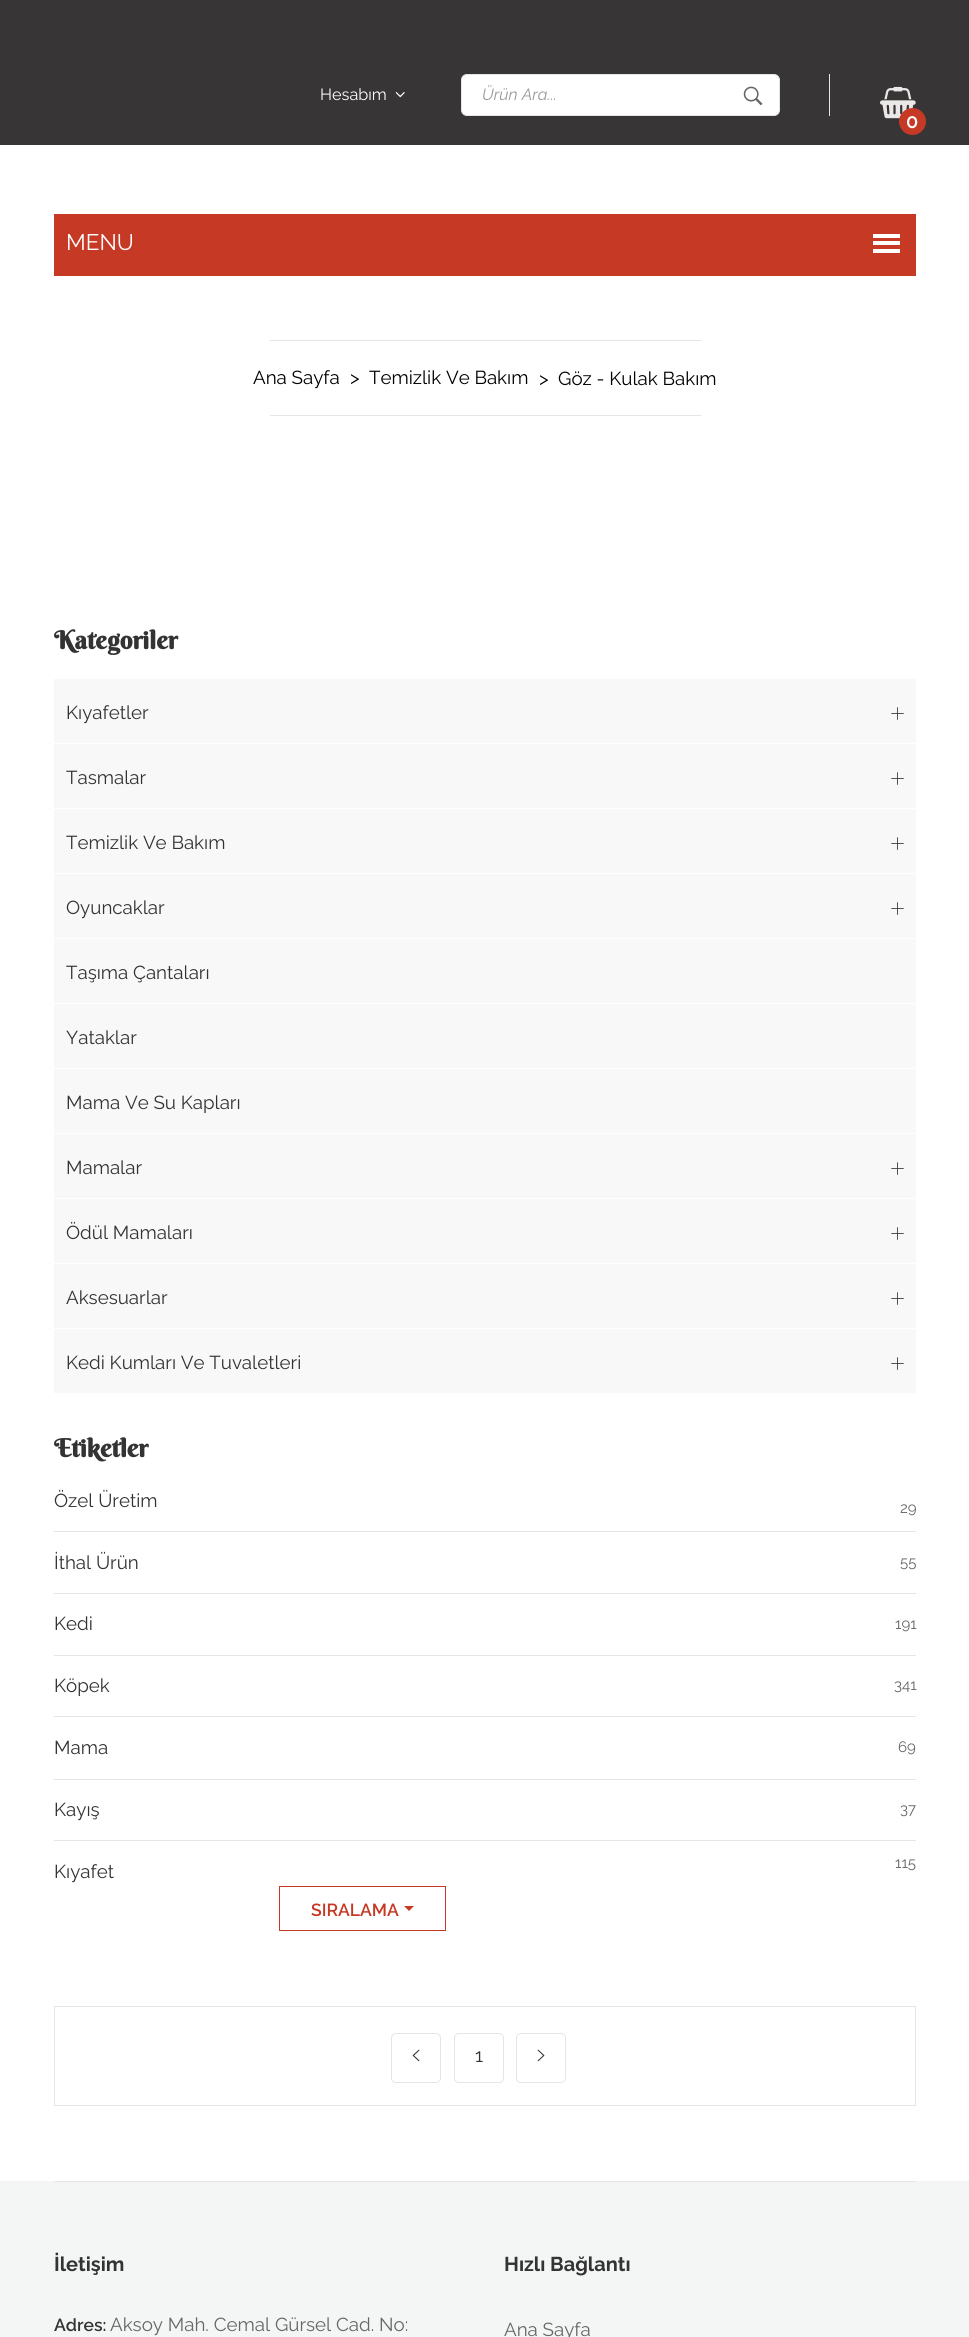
import math
import cairo

surface = cairo.ImageSurface(cairo.FORMAT_RGB24, 969, 2337)
c = cairo.Context(surface)
options = cairo.FontOptions()
options.set_hint_metrics(cairo.HINT_METRICS_OFF)
options.set_hint_style(cairo.HINT_STYLE_NONE)
c.set_font_options(options)
c.set_miter_limit(4)
def C(code):
 c.set_source_rgb(*(v / 255 for v in bytes.fromhex(code[-6:])))
def F(family, size, italic, bold):
 c.select_font_face(family, cairo.FONT_SLANT_ITALIC if italic else cairo.FONT_SLANT_NORMAL, cairo.FONT_WEIGHT_BOLD if bold else cairo.FONT_WEIGHT_NORMAL)
 c.set_font_size(size)
def T(x, y, s):
 c.move_to(x, y)
 c.show_text(s)
def R(x, y, w, h):
 c.rectangle(x, y, w, h)
 c.fill()
def Q(x, y, w, h, r):
 c.new_sub_path()
 for i, (u, v) in enumerate([(x + w - r, y + h - r), (x + r, y + h - r), (x + r, y + r), (x + w - r, y + r)]):
  c.arc(u, v, r, i * math.pi / 2, (i + 1) * math.pi / 2)
 c.close_path()
def I(path, x, y, w, h):
 c.save()
 c.set_source_surface(cairo.ImageSurface.create_from_png(path), x, y)
 c.rectangle(x, y, w, h)
 c.fill()
 c.restore()
C('ffffff')
c.paint()
C('373536')
R(0,0,969,145)
F('Raleway',16.25,0,0)
C('ffffff')
T(320,100,'Hesabım')
I('1.png',395,92,10,6)
Q(461.5,74.5,318,41,5.5)
c.fill_preserve()
C('e5e5e5')
c.set_line_width(1)
c.stroke()
F('Raleway',16.25,1,0)
C('999999')
T(482,100,'Ürün Ara...')
I('2.png',743,86,20,20)
C('e5e5e5')
R(829,74,1,42)
I('3.png',880,86,36,33)
C('c53925')
c.arc(912.5,121.5,13.5,0,2 * math.pi)
c.fill()
F('Raleway SemiBold',20,0,0)
C('ffffff')
T(906,128,'0')
C('c53925')
R(54,214,862,62)
F('Raleway',22.5,0,0)
C('ffffff')
T(66,250,'MENU')
R(873,234,27,4)
R(873,241,27,4)
R(873,249,27,4)
C('e6e6e6')
R(270,340,431,1)
F('Raleway',18.75,0,0)
C('000000')
T(253,384,'Ana Sayfa')
T(350,384,'>')
T(369,384,'Temizlik Ve Bakım')
T(539,385,'>')
T(558,385,'Göz - Kulak Bakım')
C('e6e6e6')
R(270,415,431,1)
F('Berkshire Swash',25,0,1)
C('333333')
T(54,649,'Kategoriler')
C('f8f8f8')
R(54,679,862,64)
F('Raleway',18.75,0,0)
C('333333')
T(66,719,'Kıyafetler')
I('4.png',891,707,13,13)
C('f8f8f8')
R(54,744,862,64)
C('333333')
T(66,784,'Tasmalar')
I('4.png',891,772,13,13)
C('f8f8f8')
R(54,809,862,64)
C('333333')
T(66,849,'Temizlik Ve Bakım')
I('4.png',891,837,13,13)
C('f8f8f8')
R(54,874,862,64)
C('333333')
T(66,914,'Oyuncaklar')
I('4.png',891,902,13,13)
C('f8f8f8')
R(54,939,862,64)
C('333333')
T(66,979,'Taşıma Çantaları')
C('f8f8f8')
R(54,1004,862,64)
C('333333')
T(66,1044,'Yataklar')
C('f8f8f8')
R(54,1069,862,64)
C('333333')
T(66,1109,'Mama Ve Su Kapları')
C('f8f8f8')
R(54,1134,862,64)
C('333333')
T(66,1174,'Mamalar')
I('4.png',891,1162,13,13)
C('f8f8f8')
R(54,1199,862,64)
C('333333')
T(66,1239,'Ödül Mamaları')
I('4.png',891,1227,13,13)
C('f8f8f8')
R(54,1264,862,64)
C('333333')
T(66,1304,'Aksesuarlar')
I('4.png',891,1292,13,13)
C('f8f8f8')
R(54,1329,862,64)
C('333333')
T(66,1369,'Kedi Kumları Ve Tuvaletleri')
I('4.png',891,1357,13,13)
F('Berkshire Swash',25,0,1)
T(54,1457,'Etiketler')
C('e5e5e5')
R(54,1531,862,1)
F('Raleway',18.75,0,0)
C('333333')
T(54,1507,'Özel Üretim')
F('Raleway',15,0,0)
C('666666')
T(900,1513,'29')
C('e5e5e5')
R(54,1593,862,1)
F('Raleway',18.75,0,0)
C('333333')
T(54,1569,'İthal Ürün')
F('Raleway',15,0,0)
C('666666')
T(900,1567,'55')
C('e5e5e5')
R(54,1655,862,1)
F('Raleway',18.75,0,0)
C('333333')
T(54,1630,'Kedi')
F('Raleway',15,0,0)
C('666666')
T(895,1629,'191')
C('e5e5e5')
R(54,1716,862,1)
F('Raleway',18.75,0,0)
C('333333')
T(54,1692,'Köpek')
F('Raleway',15,0,0)
C('666666')
T(894,1690,'341')
C('e5e5e5')
R(54,1779,862,1)
F('Raleway',18.75,0,0)
C('333333')
T(54,1754,'Mama')
F('Raleway',15,0,0)
C('666666')
T(898,1752,'69')
C('e5e5e5')
R(54,1840,862,1)
F('Raleway',18.75,0,0)
C('333333')
T(54,1816,'Kayış')
F('Raleway',15,0,0)
C('666666')
T(900,1814,'37')
F('Raleway',18.75,0,0)
C('333333')
T(54,1878,'Kıyafet')
F('Raleway',15,0,0)
C('666666')
T(895,1868,'115')
c.rectangle(279.5,1886.5,166,44)
C('c53925')
c.stroke()
F('Raleway SemiBold',17.5,0,0)
T(311,1916,'SIRALAMA')
c.new_path()
c.move_to(404,1906)
c.line_to(414,1906)
c.line_to(409,1911)
c.close_path()
c.fill()
c.rectangle(54.5,2006.5,861,99)
C('e5e5e5')
c.stroke()
Q(391.5,2033.5,49,49,4.5)
c.stroke()
I('5.png',412,2049,8,13)
Q(454.5,2033.5,49,49,4.5)
c.stroke()
F('Raleway',18.75,0,0)
C('333333')
T(475,2062,'1')
Q(516.5,2033.5,49,49,4.5)
C('e5e5e5')
c.stroke()
I('6.png',537,2049,8,13)
C('f3f6f5')
R(0,2181,969,156)
C('e5e5e5')
R(54,2181,862,1)
F('Raleway',20,0,1)
C('333333')
T(54,2271,'İletişim')
F('Raleway SemiBold',17.5,0,0)
T(54,2331,'Adres:')
F('Raleway',18.75,0,0)
C('666666')
T(110,2331,'Aksoy Mah. Cemal Gürsel Cad. No:')
F('Raleway',20,0,1)
C('333333')
T(504,2271,'Hızlı Bağlantı')
F('Raleway',18.75,0,0)
C('666666')
T(504,2336,'Ana Sayfa')
surface.write_to_png('o.png')
